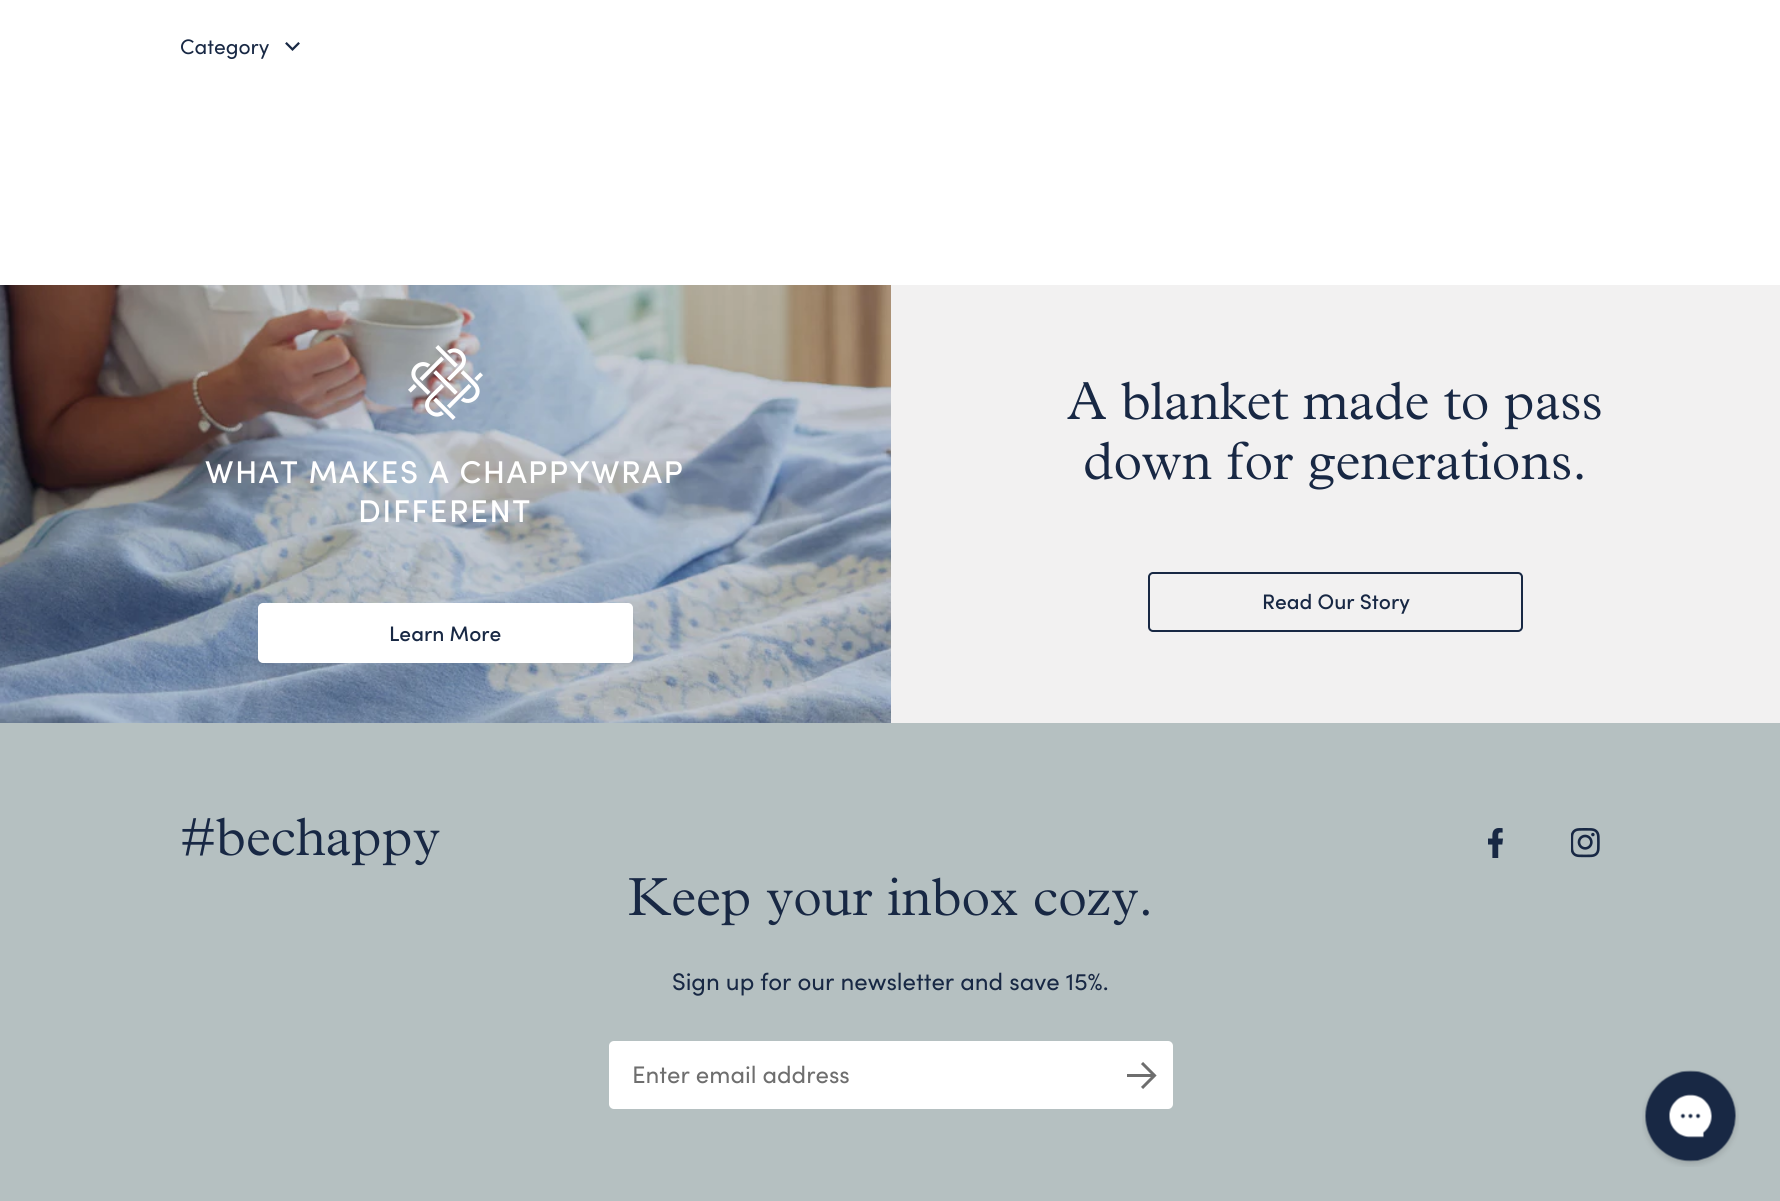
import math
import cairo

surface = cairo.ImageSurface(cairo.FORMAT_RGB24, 1780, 1201)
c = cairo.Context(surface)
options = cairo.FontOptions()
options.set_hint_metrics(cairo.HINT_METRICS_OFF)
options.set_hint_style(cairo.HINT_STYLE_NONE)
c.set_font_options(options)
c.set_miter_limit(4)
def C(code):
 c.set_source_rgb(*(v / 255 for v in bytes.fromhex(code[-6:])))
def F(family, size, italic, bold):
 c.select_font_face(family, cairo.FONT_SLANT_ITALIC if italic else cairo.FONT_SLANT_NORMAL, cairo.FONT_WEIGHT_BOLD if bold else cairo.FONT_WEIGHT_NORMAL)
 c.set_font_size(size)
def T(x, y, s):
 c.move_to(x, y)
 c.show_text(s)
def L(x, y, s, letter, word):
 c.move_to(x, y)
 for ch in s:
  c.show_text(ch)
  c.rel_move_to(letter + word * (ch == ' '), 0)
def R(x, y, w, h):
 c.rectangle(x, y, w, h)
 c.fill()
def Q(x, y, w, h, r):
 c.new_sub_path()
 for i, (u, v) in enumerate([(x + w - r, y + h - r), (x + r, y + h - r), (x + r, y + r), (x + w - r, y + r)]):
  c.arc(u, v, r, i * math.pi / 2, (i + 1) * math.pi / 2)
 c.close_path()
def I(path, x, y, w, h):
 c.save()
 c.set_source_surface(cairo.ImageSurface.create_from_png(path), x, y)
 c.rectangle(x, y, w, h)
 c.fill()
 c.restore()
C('ffffff')
c.paint()
F('Sofia',21,0,0)
C('182844')
T(180,54,'Category')
I('1.png',285,42,15,9)
C('f2f1f1')
R(891,285,889,438)
I('2.png',0,285,891,438)
I('3.png',408,345,75,75)
F('Sofia Medium',31.5,0,0)
C('ffffff')
L(205,483,'WHAT MAKES A CHAPPYWRAP',1.5,0)
L(358,522,'DIFFERENT',1.5,0)
Q(259,604,373,58,4)
c.fill_preserve()
c.stroke()
F('Sofia Medium',21,0,0)
C('182844')
T(389,641,'Learn More')
F('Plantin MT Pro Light',54,0,0)
T(1067,419,'A blanket made to pass')
T(1083,479,'down for generations.')
Q(1149,573,373,58,4)
c.stroke()
F('Sofia Medium',21,0,0)
T(1262,609,'Read Our Story')
C('b5c0c1')
R(0,723,1780,478)
F('Plantin MT Pro Light',54,0,0)
C('182844')
T(180,855,'#bechappy')
I('4.png',1488,828,15,30)
I('5.png',1571,828,29,30)
T(628,915,'Keep your inbox cozy.')
F('Sofia',24,0,0)
T(672,990,'Sign up for our newsletter and save 15%.')
C('ffffff')
Q(609,1041,564,68,5)
c.fill()
C('6e6e6e')
T(632,1083,'Enter email address')
R(1127,1074,27,3)
c.new_path()
c.move_to(1142,1063)
c.line_to(1154.5,1075.5)
c.line_to(1142,1088)
c.set_line_width(3)
c.stroke()
I('6.png',1642,1070,97,97)
surface.write_to_png('o.png')
